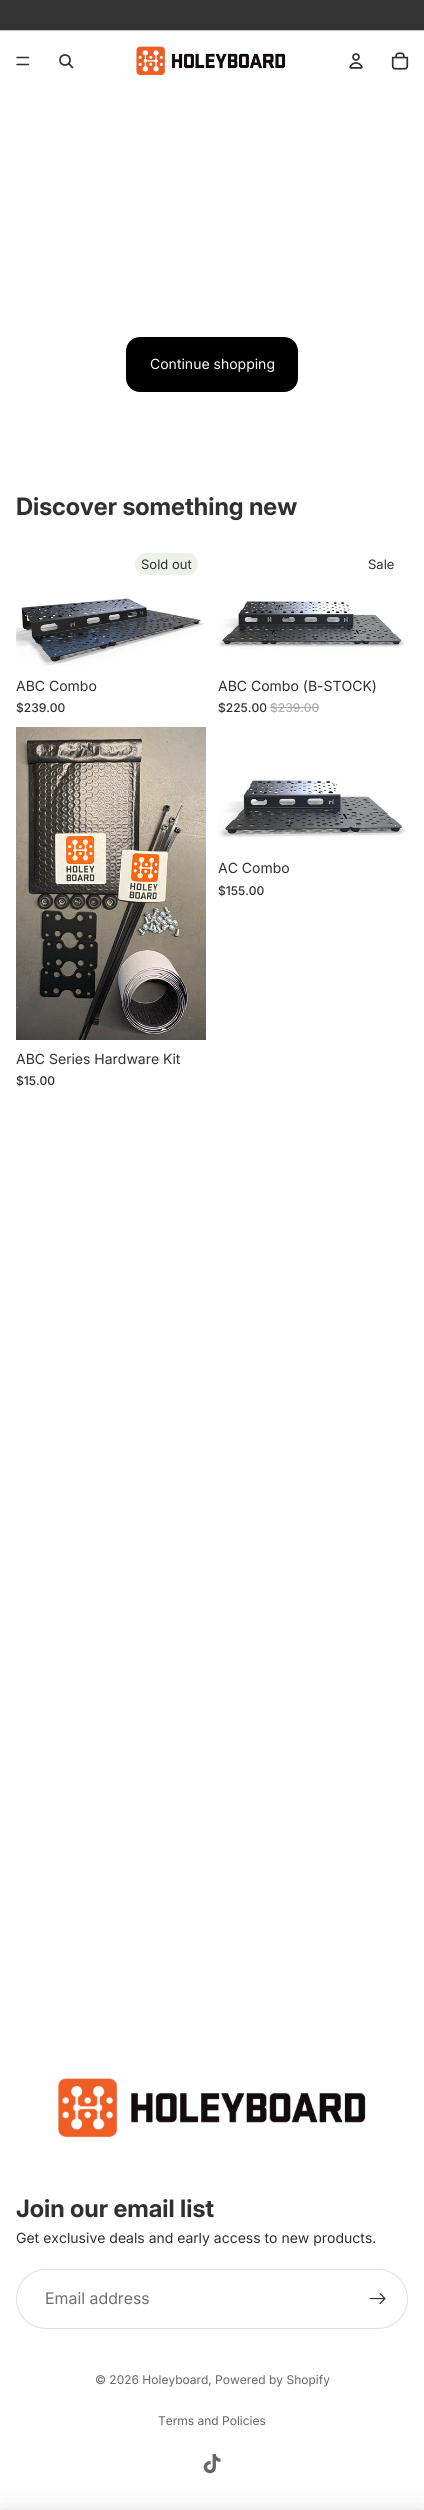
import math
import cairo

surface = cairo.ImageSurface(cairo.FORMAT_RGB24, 424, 2510)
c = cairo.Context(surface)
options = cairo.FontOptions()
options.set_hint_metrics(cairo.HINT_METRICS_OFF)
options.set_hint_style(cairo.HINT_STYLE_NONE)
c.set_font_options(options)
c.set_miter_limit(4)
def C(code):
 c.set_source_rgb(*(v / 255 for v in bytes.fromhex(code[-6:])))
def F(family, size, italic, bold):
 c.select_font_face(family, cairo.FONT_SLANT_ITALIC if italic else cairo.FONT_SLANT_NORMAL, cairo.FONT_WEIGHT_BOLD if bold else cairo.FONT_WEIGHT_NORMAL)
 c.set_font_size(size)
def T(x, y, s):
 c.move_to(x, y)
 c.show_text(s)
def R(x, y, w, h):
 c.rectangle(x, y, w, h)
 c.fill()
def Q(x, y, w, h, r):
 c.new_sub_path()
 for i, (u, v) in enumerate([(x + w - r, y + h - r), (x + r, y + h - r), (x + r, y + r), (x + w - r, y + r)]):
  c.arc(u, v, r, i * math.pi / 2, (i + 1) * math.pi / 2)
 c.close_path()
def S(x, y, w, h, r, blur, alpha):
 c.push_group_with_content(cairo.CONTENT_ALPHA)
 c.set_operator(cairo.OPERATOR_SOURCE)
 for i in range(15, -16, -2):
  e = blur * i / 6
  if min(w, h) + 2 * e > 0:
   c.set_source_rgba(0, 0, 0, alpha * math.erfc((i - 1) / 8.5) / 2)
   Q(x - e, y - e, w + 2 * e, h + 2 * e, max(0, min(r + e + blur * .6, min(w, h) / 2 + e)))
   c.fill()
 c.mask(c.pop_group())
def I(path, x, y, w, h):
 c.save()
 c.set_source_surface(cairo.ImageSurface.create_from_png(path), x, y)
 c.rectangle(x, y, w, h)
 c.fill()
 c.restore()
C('ffffff')
c.paint()
C('333333')
R(0,0,424,30)
C('c0c0c0')
R(0,30,424,1)
c.new_path()
c.move_to(17,57.5)
c.line_to(28.5,57.5)
c.move_to(17,64.5)
c.line_to(28.5,64.5)
C('303030')
c.set_line_width(1.5)
c.set_line_cap(cairo.LINE_CAP_ROUND)
c.stroke()
c.arc(65,60,5,0,2 * math.pi)
c.set_line_width(1.7)
c.set_line_cap(cairo.LINE_CAP_BUTT)
c.stroke()
c.new_path()
c.move_to(69,64)
c.line_to(72.5,67.5)
c.set_source_rgba(0,0,0,0.81)
c.set_line_cap(cairo.LINE_CAP_ROUND)
c.set_line_join(cairo.LINE_JOIN_ROUND)
c.stroke()
I('1.png',135,45,152,32)
I('2.png',349,53,14,16)
I('3.png',391,52,18,18)
C('000000')
Q(126,337,172,55,14)
c.fill()
F('Inter',14,0,0)
C('ffffff')
T(150,369,'Continue shopping')
F('Inter',24,0,1)
C('303030')
T(16,515,'Discover something new')
C('eef1ea')
Q(135,553,63,22,11)
c.fill()
F('Inter',13,0,0)
C('303030')
T(141,569,'Sold out')
I('4.png',16,598,188,68)
F('Inter',14,0,0)
T(16,691,'ABC Combo')
F('Inter Medium',12,0,0)
T(16,712,'$239.00')
F('Inter',13,0,0)
T(368,569,'Sale')
I('5.png',218,601,187,48)
F('Inter',14,0,0)
T(218,691,'ABC Combo (B-STOCK)')
F('Inter Medium',12,0,0)
T(218,712,'$225.00')
C('acacac')
T(270,712,'$239.00')
c.set_source_rgba(0.6,0.6,0.6,0.81)
R(270,707,49,1)
I('6.png',218,779,189,59)
F('Inter',14,0,0)
C('303030')
T(218,873,'AC Combo')
F('Inter Medium',12,0,0)
T(218,895,'$155.00')
I('7.png',16,727,190,313)
F('Inter',14,0,0)
T(16,1064,'ABC Series Hardware Kit')
F('Inter Medium',12,0,0)
T(16,1085,'$15.00')
I('8.png',58,2077,308,62)
F('Inter',24,0,1)
T(16,2217,'Join our email list')
F('Inter',14,0,0)
T(16,2243,'Get exclusive deals and early access to new products.')
Q(16.5,2269.5,391,59,29.5)
C('dfdfdf')
c.set_line_width(1)
c.set_line_cap(cairo.LINE_CAP_BUTT)
c.set_line_join(cairo.LINE_JOIN_MITER)
c.stroke()
F('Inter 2',16,0,0)
C('707070')
T(45,2304,'Email address')
I('9.png',369,2293,17,11)
F('Inter',12,0,0)
C('666666')
T(95,2384,'© 2026 Holeyboard, Powered by Shopify')
T(158,2425,'Terms and Policies')
I('10.png',203,2454,18,20)
C('000000')
S(0,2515,424,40,0,15,.15)
surface.write_to_png('o.png')
